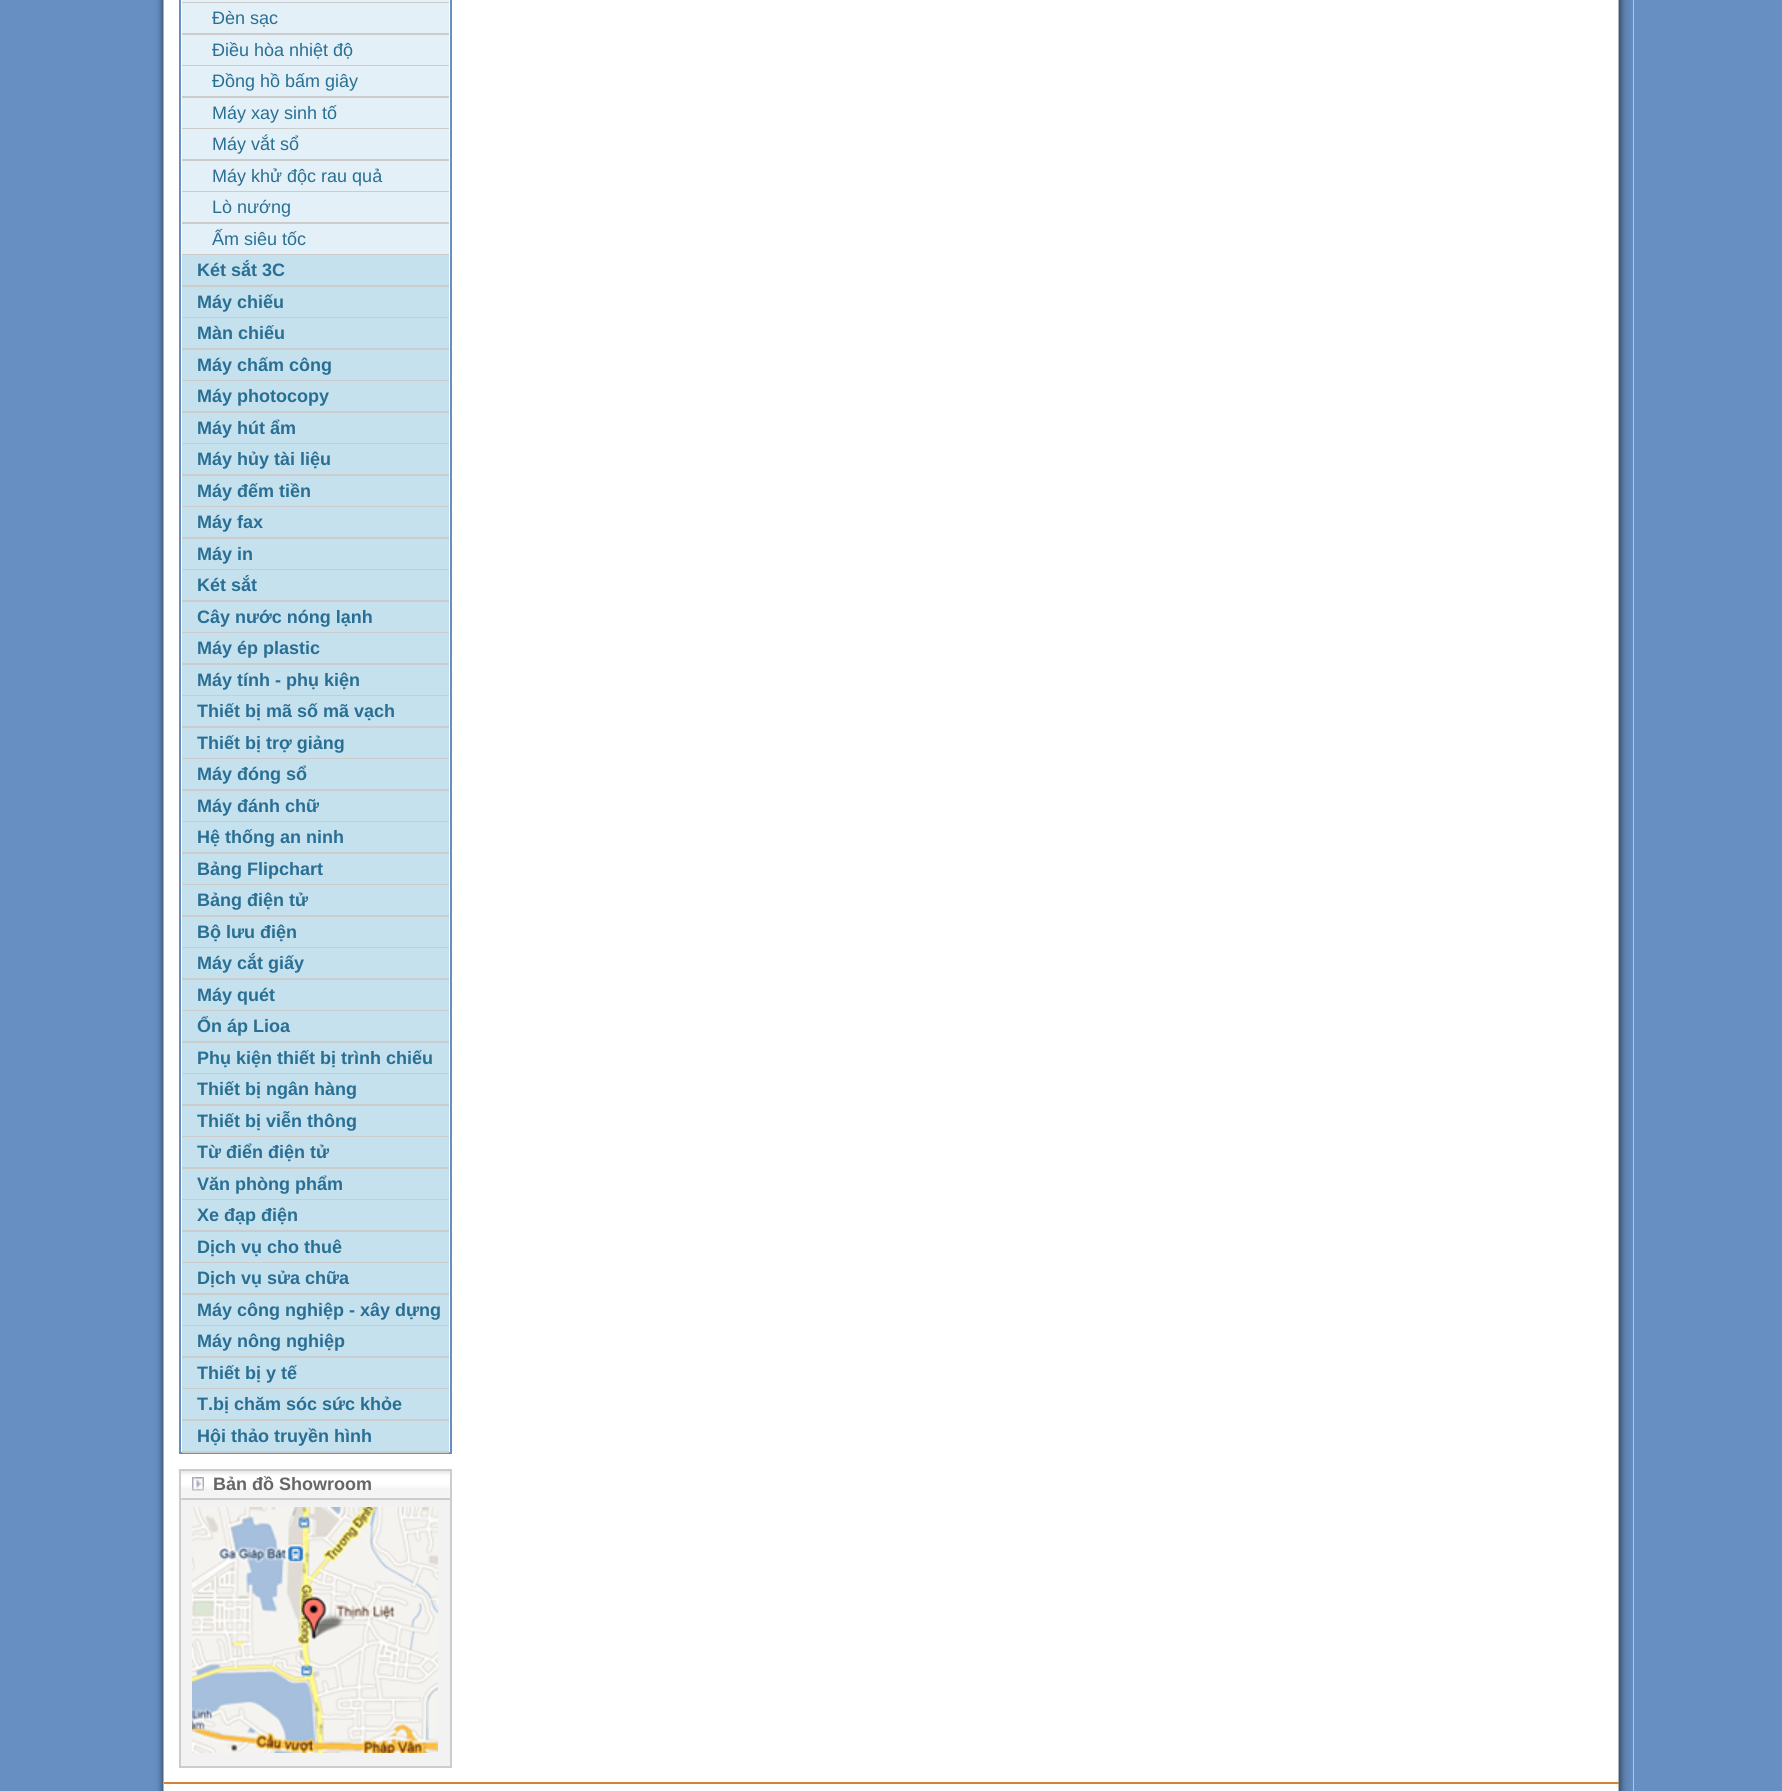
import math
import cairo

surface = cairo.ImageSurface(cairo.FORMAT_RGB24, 1782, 1791)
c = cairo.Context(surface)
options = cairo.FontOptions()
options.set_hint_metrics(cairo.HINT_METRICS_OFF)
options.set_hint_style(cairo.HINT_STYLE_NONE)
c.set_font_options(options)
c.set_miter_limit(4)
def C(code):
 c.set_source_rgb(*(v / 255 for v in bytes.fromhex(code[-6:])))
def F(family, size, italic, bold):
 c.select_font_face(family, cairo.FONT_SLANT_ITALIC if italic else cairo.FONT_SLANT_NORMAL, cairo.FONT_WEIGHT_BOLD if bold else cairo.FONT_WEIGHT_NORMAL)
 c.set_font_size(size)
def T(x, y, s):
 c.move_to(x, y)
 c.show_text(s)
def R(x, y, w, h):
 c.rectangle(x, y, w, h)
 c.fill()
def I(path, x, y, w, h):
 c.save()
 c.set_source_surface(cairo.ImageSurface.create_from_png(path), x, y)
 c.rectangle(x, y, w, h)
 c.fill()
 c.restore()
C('678fc2')
c.paint()
C('ffffff')
R(1633,0,1,1791)
I('1.png',149,0,1485,1791)
C('678fc2')
R(450,0,2,1454)
R(179,1452,273,2)
R(179,0,2,1454)
C('cccccc')
R(182,2,267,1)
C('e3f0f7')
R(182,0,267,2)
C('cccccc')
R(182,33,267,2)
C('e3f0f7')
R(182,3,267,30)
F('Liberation Sans',18,0,0)
C('296f94')
T(212,24,'Đèn sạc')
C('cccccc')
R(182,65,267,1)
C('e3f0f7')
R(182,35,267,30)
C('296f94')
T(212,56,'Điều hòa nhiệt độ')
C('cccccc')
R(182,96,267,2)
C('e3f0f7')
R(182,66,267,30)
C('296f94')
T(212,87,'Đồng hồ bấm giây')
C('cccccc')
R(182,128,267,1)
C('e3f0f7')
R(182,98,267,30)
C('296f94')
T(212,119,'Máy xay sinh tố')
C('cccccc')
R(182,159,267,2)
C('e3f0f7')
R(182,129,267,30)
C('296f94')
T(212,150,'Máy vắt sổ')
C('cccccc')
R(182,191,267,1)
C('e3f0f7')
R(182,161,267,30)
C('296f94')
T(212,182,'Máy khử độc rau quả')
C('cccccc')
R(182,222,267,2)
C('e3f0f7')
R(182,192,267,30)
C('296f94')
T(212,213,'Lò nướng')
C('cccccc')
R(182,254,267,1)
C('e3f0f7')
R(182,224,267,30)
C('296f94')
T(212,245,'Ấm siêu tốc')
C('cccccc')
R(182,285,267,2)
C('c6e1ee')
R(182,255,267,30)
F('Liberation Sans',18,0,1)
C('296f94')
T(197,276,'Két sắt 3C')
C('cccccc')
R(182,317,267,1)
C('c6e1ee')
R(182,287,267,30)
C('296f94')
T(197,308,'Máy chiếu')
C('cccccc')
R(182,348,267,2)
C('c6e1ee')
R(182,318,267,30)
C('296f94')
T(197,339,'Màn chiếu')
C('cccccc')
R(182,380,267,1)
C('c6e1ee')
R(182,350,267,30)
C('296f94')
T(197,371,'Máy chấm công')
C('cccccc')
R(182,411,267,2)
C('c6e1ee')
R(182,381,267,30)
C('296f94')
T(197,402,'Máy photocopy')
C('cccccc')
R(182,443,267,1)
C('c6e1ee')
R(182,413,267,30)
C('296f94')
T(197,434,'Máy hút ẩm')
C('cccccc')
R(182,474,267,2)
C('c6e1ee')
R(182,444,267,30)
C('296f94')
T(197,465,'Máy hủy tài liệu')
C('cccccc')
R(182,506,267,1)
C('c6e1ee')
R(182,476,267,30)
C('296f94')
T(197,497,'Máy đếm tiền')
C('cccccc')
R(182,537,267,2)
C('c6e1ee')
R(182,507,267,30)
C('296f94')
T(197,528,'Máy fax')
C('cccccc')
R(182,569,267,1)
C('c6e1ee')
R(182,539,267,30)
C('296f94')
T(197,560,'Máy in')
C('cccccc')
R(182,600,267,2)
C('c6e1ee')
R(182,570,267,30)
C('296f94')
T(197,591,'Két sắt')
C('cccccc')
R(182,632,267,1)
C('c6e1ee')
R(182,602,267,30)
C('296f94')
T(197,623,'Cây nước nóng lạnh')
C('cccccc')
R(182,663,267,2)
C('c6e1ee')
R(182,633,267,30)
C('296f94')
T(197,654,'Máy ép plastic')
C('cccccc')
R(182,695,267,1)
C('c6e1ee')
R(182,665,267,30)
C('296f94')
T(197,686,'Máy tính - phụ kiện')
C('cccccc')
R(182,726,267,2)
C('c6e1ee')
R(182,696,267,30)
C('296f94')
T(197,717,'Thiết bị mã số mã vạch')
C('cccccc')
R(182,758,267,1)
C('c6e1ee')
R(182,728,267,30)
C('296f94')
T(197,749,'Thiết bị trợ giảng')
C('cccccc')
R(182,789,267,2)
C('c6e1ee')
R(182,759,267,30)
C('296f94')
T(197,780,'Máy đóng sổ')
C('cccccc')
R(182,821,267,1)
C('c6e1ee')
R(182,791,267,30)
C('296f94')
T(197,812,'Máy đánh chữ')
C('cccccc')
R(182,852,267,2)
C('c6e1ee')
R(182,822,267,30)
C('296f94')
T(197,843,'Hệ thống an ninh')
C('cccccc')
R(182,884,267,1)
C('c6e1ee')
R(182,854,267,30)
C('296f94')
T(197,875,'Bảng Flipchart')
C('cccccc')
R(182,915,267,2)
C('c6e1ee')
R(182,885,267,30)
C('296f94')
T(197,906,'Bảng điện tử')
C('cccccc')
R(182,947,267,1)
C('c6e1ee')
R(182,917,267,30)
C('296f94')
T(197,938,'Bộ lưu điện')
C('cccccc')
R(182,978,267,2)
C('c6e1ee')
R(182,948,267,30)
C('296f94')
T(197,969,'Máy cắt giấy')
C('cccccc')
R(182,1010,267,1)
C('c6e1ee')
R(182,980,267,30)
C('296f94')
T(197,1001,'Máy quét')
C('cccccc')
R(182,1041,267,2)
C('c6e1ee')
R(182,1011,267,30)
C('296f94')
T(197,1032,'Ổn áp Lioa')
C('cccccc')
R(182,1073,267,1)
C('c6e1ee')
R(182,1043,267,30)
C('296f94')
T(197,1064,'Phụ kiện thiết bị trình chiếu')
C('cccccc')
R(182,1104,267,2)
C('c6e1ee')
R(182,1074,267,30)
C('296f94')
T(197,1095,'Thiết bị ngân hàng')
C('cccccc')
R(182,1136,267,1)
C('c6e1ee')
R(182,1106,267,30)
C('296f94')
T(197,1127,'Thiết bị viễn thông')
C('cccccc')
R(182,1167,267,2)
C('c6e1ee')
R(182,1137,267,30)
C('296f94')
T(197,1158,'Từ điển điện tử')
C('cccccc')
R(182,1199,267,1)
C('c6e1ee')
R(182,1169,267,30)
C('296f94')
T(197,1190,'Văn phòng phẩm')
C('cccccc')
R(182,1230,267,2)
C('c6e1ee')
R(182,1200,267,30)
C('296f94')
T(197,1221,'Xe đạp điện')
C('cccccc')
R(182,1262,267,1)
C('c6e1ee')
R(182,1232,267,30)
C('296f94')
T(197,1253,'Dịch vụ cho thuê')
C('cccccc')
R(182,1293,267,2)
C('c6e1ee')
R(182,1263,267,30)
C('296f94')
T(197,1284,'Dịch vụ sửa chữa')
C('cccccc')
R(182,1325,267,1)
C('c6e1ee')
R(182,1295,267,30)
C('296f94')
T(197,1316,'Máy công nghiệp - xây dựng')
C('cccccc')
R(182,1356,267,2)
C('c6e1ee')
R(182,1326,267,30)
C('296f94')
T(197,1347,'Máy nông nghiệp')
C('cccccc')
R(182,1388,267,1)
C('c6e1ee')
R(182,1358,267,30)
C('296f94')
T(197,1379,'Thiết bị y tế')
C('cccccc')
R(182,1419,267,2)
C('c6e1ee')
R(182,1389,267,30)
C('296f94')
T(197,1410,'T.bị chăm sóc sức khỏe')
C('cccccc')
R(182,1451,267,2)
C('c6e1ee')
R(182,1421,267,30)
C('296f94')
T(197,1442,'Hội thảo truyền hình')
I('2.png',178,1469,272,29)
c.rectangle(180,1470,271,29)
C('cccccc')
c.stroke()
I('3.png',192,1477,12,14)
C('666666')
T(213,1490,'Bản đồ Showroom')
C('f2f2f2')
R(181,1500,269,266)
C('cccccc')
R(450,1500,2,267)
R(179,1766,273,2)
R(179,1500,2,267)
I('4.png',192,1507,246,246)
C('d58137')
R(164,1782,1455,2)
surface.write_to_png('o.png')
